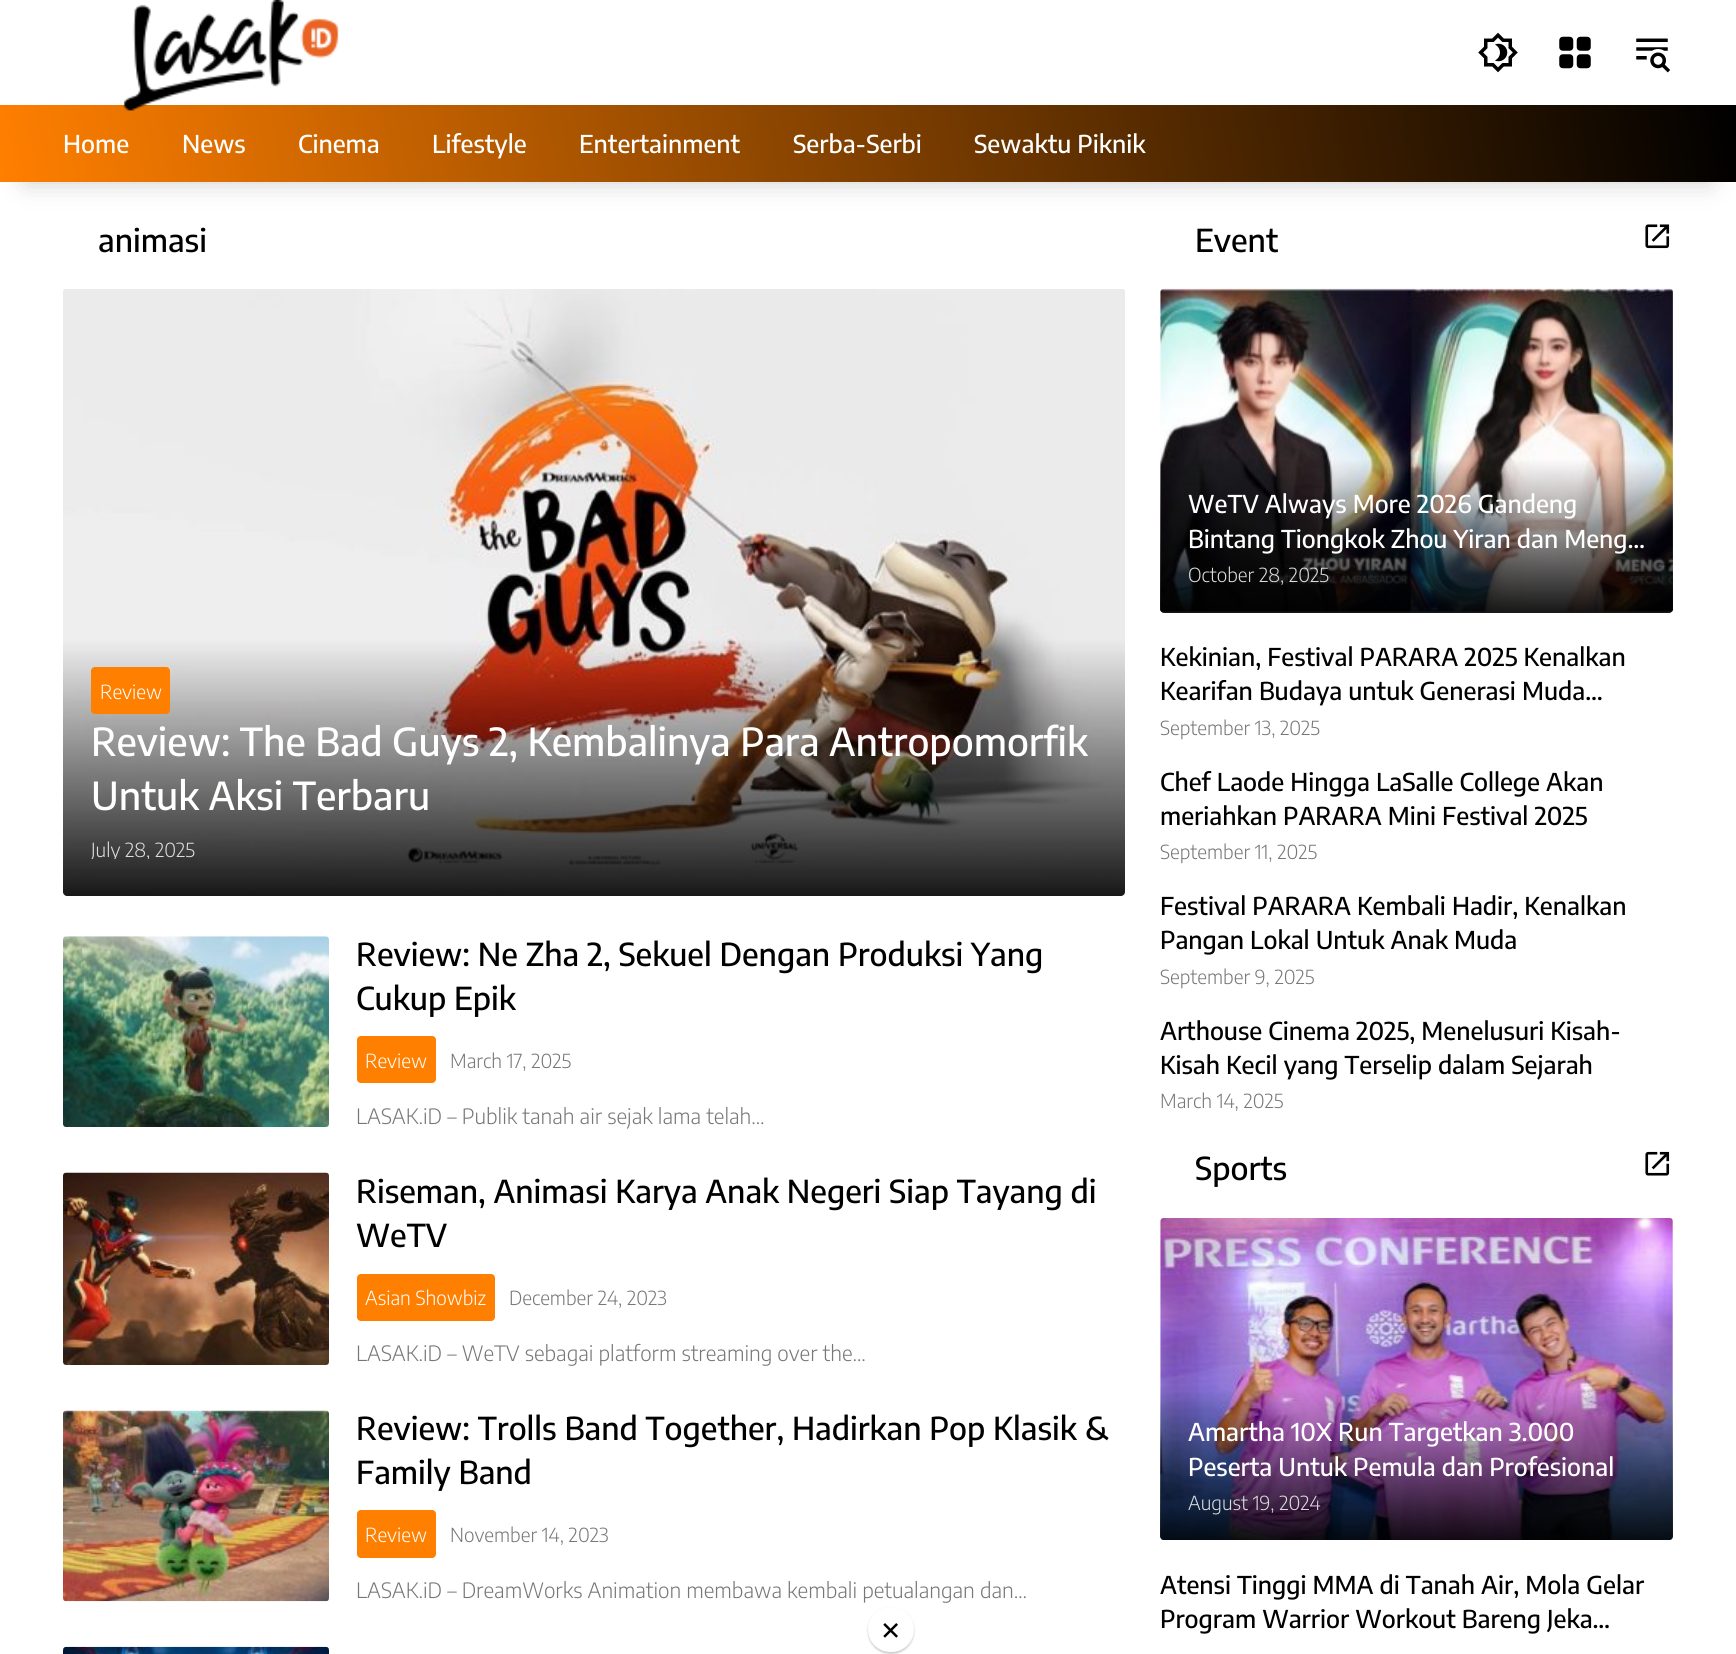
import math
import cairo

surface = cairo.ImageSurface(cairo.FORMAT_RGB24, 1736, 1654)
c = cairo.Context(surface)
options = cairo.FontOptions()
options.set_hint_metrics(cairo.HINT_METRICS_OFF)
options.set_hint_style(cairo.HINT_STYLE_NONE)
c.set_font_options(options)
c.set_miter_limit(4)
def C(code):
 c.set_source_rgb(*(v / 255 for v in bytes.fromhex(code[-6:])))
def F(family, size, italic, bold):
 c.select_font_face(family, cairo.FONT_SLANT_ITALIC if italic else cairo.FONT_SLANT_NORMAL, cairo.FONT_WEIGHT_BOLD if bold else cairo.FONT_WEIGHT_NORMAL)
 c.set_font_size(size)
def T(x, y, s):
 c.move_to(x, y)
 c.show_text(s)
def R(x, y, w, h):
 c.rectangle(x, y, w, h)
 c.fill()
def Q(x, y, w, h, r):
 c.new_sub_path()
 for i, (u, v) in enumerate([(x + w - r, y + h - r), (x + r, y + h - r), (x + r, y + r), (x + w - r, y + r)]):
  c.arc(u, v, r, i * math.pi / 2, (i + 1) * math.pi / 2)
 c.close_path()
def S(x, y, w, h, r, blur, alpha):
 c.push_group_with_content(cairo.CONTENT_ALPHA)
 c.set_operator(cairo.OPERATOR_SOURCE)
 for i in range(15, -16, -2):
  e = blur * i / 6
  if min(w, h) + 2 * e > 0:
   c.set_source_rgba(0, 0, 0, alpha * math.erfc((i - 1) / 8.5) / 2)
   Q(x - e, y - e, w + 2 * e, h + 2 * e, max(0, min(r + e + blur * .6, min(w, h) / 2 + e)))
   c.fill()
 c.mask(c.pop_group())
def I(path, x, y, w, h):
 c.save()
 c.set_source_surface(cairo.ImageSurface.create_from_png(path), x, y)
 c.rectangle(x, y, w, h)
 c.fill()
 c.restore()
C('ffffff')
c.paint()
C('000000')
S(26,158,1684,24,0,13,.2)
gradient = cairo.LinearGradient(20,293,1716,-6.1)
gradient.add_color_stop_rgba(0,1,0.498,0,1)
gradient.add_color_stop_rgba(1,0,0,0,1)
c.set_source(gradient)
R(0,105,1736,77)
I('1.png',123,0,216,111)
I('2.png',1478,32,40,41)
I('3.png',1559,36,32,33)
I('4.png',1636,38,34,35)
F('Encode Sans Condensed Medium',24.5,0,0)
C('ffffff')
T(63,153,'Home')
T(182,153,'News')
T(298,153,'Cinema')
T(432,153,'Lifestyle')
T(579,153,'Entertainment')
T(793,153,'Serba-Serbi')
T(974,153,'Sewaktu Piknik')
F('Encode Sans Condensed Medium',31.5,0,0)
C('000000')
T(98,252,'animasi')
I('5.png',63,289,1062,607)
gradient = cairo.LinearGradient(594,896,594,639)
gradient.add_color_stop_rgba(0,0,0,0,.9)
gradient.add_color_stop_rgba(1,0,0,0,0)
c.set_source(gradient)
c.new_path()
c.move_to(63,639)
c.line_to(1125,639)
c.line_to(1125,892)
c.curve_to(1125,894,1123,896,1121,896)
c.line_to(67,896)
c.curve_to(65,896,63,894,63,892)
c.close_path()
c.fill()
C('ff7f00')
Q(91,667,79,47,4)
c.fill()
F('Encode Sans Condensed Light',19.25,0,0)
C('ffffff')
T(100,699,'Review')
F('Encode Sans Condensed Medium',38.5,0,0)
T(91,756,'Review: The Bad Guys 2, Kembalinya Para Antropomorfik')
T(91,810,'Untuk Aksi Terbaru')
c.save()
c.rectangle(91,840,1006,19)
c.clip()
F('Encode Sans Condensed Light',19.25,0,0)
C('dddddd')
T(91,857,'July 28, 2025')
c.restore()
I('6.png',63,936,266,191)
F('Encode Sans Condensed Medium',31.5,0,0)
C('000000')
T(356,966,'Review: Ne Zha 2, Sekuel Dengan Produksi Yang')
T(356,1010,'Cukup Epik')
C('ff7f00')
Q(357,1036,79,47,4)
c.fill()
F('Encode Sans Condensed Light',19.25,0,0)
C('ffffff')
T(365,1068,'Review')
C('777777')
T(450,1068,'March 17, 2025')
F('Encode Sans Condensed Light',21,0,0)
T(356,1124,'LASAK.iD – Publik tanah air sejak lama telah…')
I('7.png',63,1172,266,193)
F('Encode Sans Condensed Medium',31.5,0,0)
C('000000')
T(356,1203,'Riseman, Animasi Karya Anak Negeri Siap Tayang di')
T(356,1247,'WeTV')
C('ff7f00')
Q(357,1274,138,47,4)
c.fill()
F('Encode Sans Condensed Light',19.25,0,0)
C('ffffff')
T(365,1305,'Asian Showbiz')
C('777777')
T(509,1305,'December 24, 2023')
F('Encode Sans Condensed Light',21,0,0)
T(356,1361,'LASAK.iD – WeTV sebagai platform streaming over the…')
I('8.png',63,1410,266,192)
F('Encode Sans Condensed Medium',31.5,0,0)
C('000000')
T(356,1440,'Review: Trolls Band Together, Hadirkan Pop Klasik &')
T(356,1484,'Family Band')
C('ff7f00')
Q(357,1510,79,48,4)
c.fill()
F('Encode Sans Condensed Light',19.25,0,0)
C('ffffff')
T(365,1542,'Review')
C('777777')
T(450,1542,'November 14, 2023')
F('Encode Sans Condensed Light',21,0,0)
T(356,1598,'LASAK.iD – DreamWorks Animation membawa kembali petualangan dan…')
I('9.png',63,1646,266,8)
F('Encode Sans Condensed Medium',31.5,0,0)
C('000000')
T(1195,252,'Event')
I('10.png',1645,224,25,25)
I('11.png',1160,288,513,325)
gradient = cairo.LinearGradient(1417,613,1417,459)
gradient.add_color_stop_rgba(0,0,0,0,.9)
gradient.add_color_stop_rgba(1,0,0,0,0)
c.set_source(gradient)
c.new_path()
c.move_to(1160,459)
c.line_to(1673,459)
c.line_to(1673,609)
c.curve_to(1673,611,1671,613,1669,613)
c.line_to(1164,613)
c.curve_to(1162,613,1160,611,1160,609)
c.close_path()
c.fill()
F('Encode Sans Condensed Medium',24.5,0,0)
C('ffffff')
T(1188,513,'WeTV Always More 2026 Gandeng')
T(1188,548,'Bintang Tiongkok Zhou Yiran dan Meng…')
F('Encode Sans Condensed Light',19.25,0,0)
C('dddddd')
T(1188,582,'October 28, 2025')
F('Encode Sans Condensed Medium',24.5,0,0)
C('000000')
T(1160,666,'Kekinian, Festival PARARA 2025 Kenalkan')
T(1160,700,'Kearifan Budaya untuk Generasi Muda…')
F('Encode Sans Condensed Light',19.25,0,0)
C('777777')
T(1160,735,'September 13, 2025')
F('Encode Sans Condensed Medium',24.5,0,0)
C('000000')
T(1160,791,'Chef Laode Hingga LaSalle College Akan')
T(1160,825,'meriahkan PARARA Mini Festival 2025')
F('Encode Sans Condensed Light',19.25,0,0)
C('777777')
T(1160,859,'September 11, 2025')
F('Encode Sans Condensed Medium',24.5,0,0)
C('000000')
T(1160,915,'Festival PARARA Kembali Hadir, Kenalkan')
T(1160,949,'Pangan Lokal Untuk Anak Muda')
F('Encode Sans Condensed Light',19.25,0,0)
C('777777')
T(1160,984,'September 9, 2025')
F('Encode Sans Condensed Medium',24.5,0,0)
C('000000')
T(1160,1040,'Arthouse Cinema 2025, Menelusuri Kisah-')
T(1160,1074,'Kisah Kecil yang Terselip dalam Sejarah')
F('Encode Sans Condensed Light',19.25,0,0)
C('777777')
T(1160,1108,'March 14, 2025')
F('Encode Sans Condensed Medium',31.5,0,0)
C('000000')
T(1195,1180,'Sports')
I('12.png',1645,1151,25,25)
I('13.png',1160,1218,513,322)
gradient = cairo.LinearGradient(1417,1540,1417,1388)
gradient.add_color_stop_rgba(0,0,0,0,.9)
gradient.add_color_stop_rgba(1,0,0,0,0)
c.set_source(gradient)
c.new_path()
c.move_to(1160,1388)
c.line_to(1673,1388)
c.line_to(1673,1536)
c.curve_to(1673,1538,1671,1540,1669,1540)
c.line_to(1164,1540)
c.curve_to(1162,1540,1160,1538,1160,1536)
c.close_path()
c.fill()
F('Encode Sans Condensed Medium',24.5,0,0)
C('ffffff')
T(1188,1441,'Amartha 10X Run Targetkan 3.000')
T(1188,1476,'Peserta Untuk Pemula dan Profesional')
F('Encode Sans Condensed Light',19.25,0,0)
C('dddddd')
T(1188,1510,'August 19, 2024')
F('Encode Sans Condensed Medium',24.5,0,0)
C('000000')
T(1160,1594,'Atensi Tinggi MMA di Tanah Air, Mola Gelar')
T(1160,1628,'Program Warrior Workout Bareng Jeka…')
C('000000')
S(868,1608,46,46,23,1,.2)
C('ffffff')
Q(868,1607,46,45,22.5)
c.fill()
F('Encode Sans Condensed',38.5,0,0)
C('000000')
T(881,1645,'×')
surface.write_to_png('o.png')
